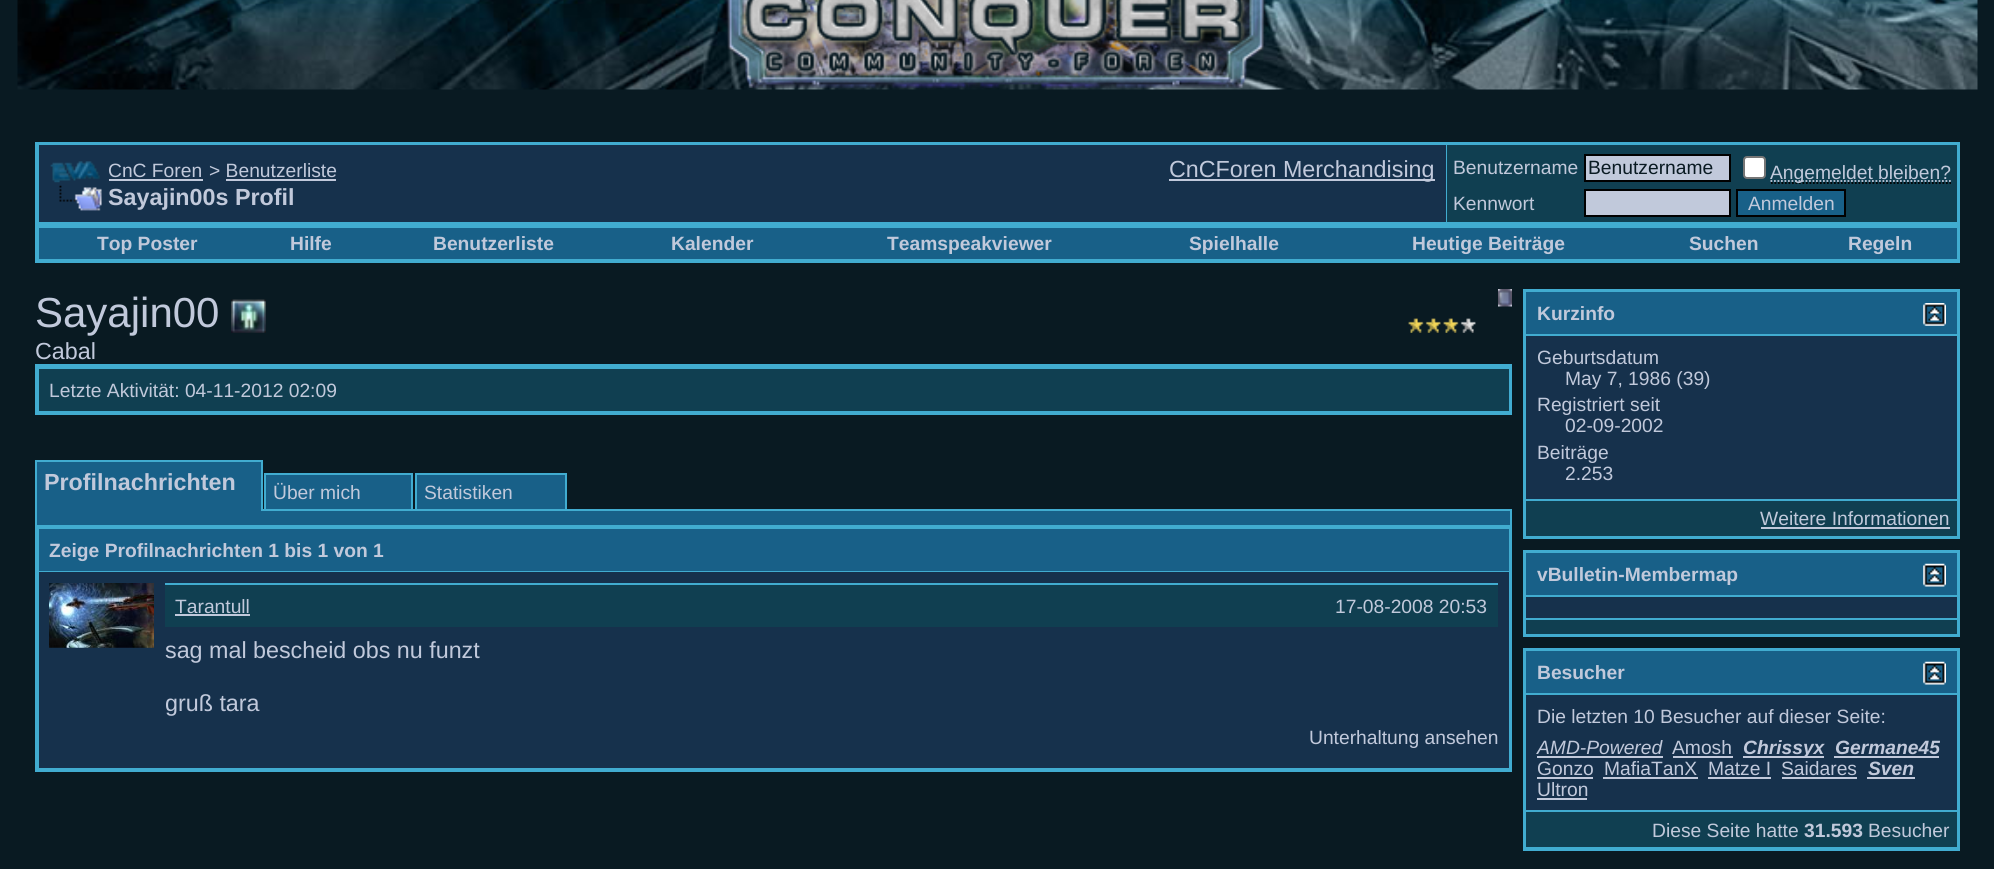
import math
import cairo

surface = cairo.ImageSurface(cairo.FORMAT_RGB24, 1994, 869)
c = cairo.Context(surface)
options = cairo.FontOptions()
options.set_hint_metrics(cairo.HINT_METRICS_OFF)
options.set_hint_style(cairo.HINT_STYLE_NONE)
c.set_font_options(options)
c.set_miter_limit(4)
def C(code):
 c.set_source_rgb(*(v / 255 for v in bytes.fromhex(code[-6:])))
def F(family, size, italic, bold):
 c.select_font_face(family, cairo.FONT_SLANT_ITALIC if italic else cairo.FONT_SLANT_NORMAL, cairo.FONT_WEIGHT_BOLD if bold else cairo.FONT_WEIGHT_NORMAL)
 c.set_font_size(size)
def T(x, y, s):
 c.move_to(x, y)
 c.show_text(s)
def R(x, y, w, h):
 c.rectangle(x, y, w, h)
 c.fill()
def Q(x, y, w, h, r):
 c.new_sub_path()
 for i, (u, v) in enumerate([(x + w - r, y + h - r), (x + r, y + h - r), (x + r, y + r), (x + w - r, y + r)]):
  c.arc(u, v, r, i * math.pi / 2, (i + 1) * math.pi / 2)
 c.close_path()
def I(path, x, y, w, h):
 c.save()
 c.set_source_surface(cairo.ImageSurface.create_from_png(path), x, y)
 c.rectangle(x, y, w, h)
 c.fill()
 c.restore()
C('091a22')
c.paint()
I('1.png',17,0,1961,90)
I('2.png',726,0,540,88)
C('41acd0')
R(35,142,1925,84)
C('16314c')
R(39,145,1407,77)
I('3.png',50,161,50,22)
F('Liberation Sans',19.25,0,0)
C('c1c9db')
T(108,177,'CnC Foren')
R(109,179,94,2)
T(209,177,'> Benutzerliste')
R(226,179,110,2)
I('4.png',59,185,43,26)
F('Liberation Sans',23.3,0,1)
T(108,205,'Sayajin00s Profil')
R(1169,179,266,2)
F('Liberation Sans',23.3,0,0)
T(1169,177,'CnCForen Merchandising')
C('103f51')
R(1447,145,510,77)
F('Liberation Sans',19.25,0,0)
C('c1c9db')
T(1453,174,'Benutzername')
c.rectangle(1585,155,145,26)
c.fill_preserve()
C('000000')
c.stroke()
C('091a22')
T(1588,174,'Benutzername')
C('ffffff')
Q(1744,157,21,21,3)
c.fill_preserve()
C('767676')
c.stroke()
c.new_path()
c.move_to(1771,183)
c.line_to(1951,183)
C('000000')
c.set_line_width(1.8)
c.set_dash([1.75,1.75])
c.stroke()
c.new_path()
c.move_to(1770.5,181)
c.line_to(1951,181)
C('c1c9db')
c.stroke()
T(1770,179,'Angemeldet bleiben?')
T(1453,210,'Kennwort')
c.rectangle(1585,190,145,26)
c.fill_preserve()
C('000000')
c.set_line_width(2)
c.set_dash([])
c.stroke()
C('186088')
c.rectangle(1737,190,108,26)
c.fill_preserve()
C('000000')
c.stroke()
C('c1c9db')
T(1748,210,'Anmelden')
C('41acd0')
R(37,226,1921,35)
R(1958,226,2,37)
R(35,261,1925,2)
R(35,226,2,37)
C('186088')
R(39,228,1918,31)
F('Liberation Sans',19.25,0,1)
C('c1c9db')
T(97,250,'Top Poster')
T(290,250,'Hilfe')
T(433,250,'Benutzerliste')
T(671,250,'Kalender')
T(887,250,'Teamspeakviewer')
T(1189,250,'Spielhalle')
T(1412,250,'Heutige Beiträge')
T(1689,250,'Suchen')
T(1848,250,'Regeln')
F('Liberation Sans',42,0,0)
T(35,327,'Sayajin00')
I('5.png',231,299,35,34)
I('6.png',1498,289,14,18)
I('7.png',1408,318,68,15)
F('Liberation Sans',23.3,0,0)
T(35,359,'Cabal')
C('41acd0')
R(35,364,1477,51)
C('103f51')
R(39,369,1470,42)
F('Liberation Sans',19.25,0,0)
C('c1c9db')
T(49,397,'Letzte Aktivität: 04-11-2012 02:09')
C('186088')
R(37,462,224,49)
C('41acd0')
R(35,460,228,2)
R(261,460,2,51)
R(35,509,2,16)
R(35,460,2,51)
F('Liberation Sans',23.3,0,1)
C('c1c9db')
T(44,490,'Profilnachrichten')
C('41acd0')
R(263,509,1249,2)
C('186088')
c.rectangle(265,474,147,36)
c.fill_preserve()
C('41acd0')
c.stroke()
F('Liberation Sans',19.25,0,0)
C('c1c9db')
T(273,499,'Über mich')
C('186088')
c.rectangle(416,474,150,36)
c.fill_preserve()
C('41acd0')
c.stroke()
C('c1c9db')
T(424,499,'Statistiken')
C('186088')
R(37,511,1473,14)
C('41acd0')
R(1510,509,2,16)
R(35,525,1477,247)
C('186088')
R(39,529,1470,42)
F('Liberation Sans',19.25,0,1)
C('c1c9db')
T(49,557,'Zeige Profilnachrichten 1 bis 1 von 1')
C('16314c')
R(39,572,1470,196)
I('8.png',49,583,105,65)
C('41acd0')
R(165,583,1333,2)
C('103f51')
R(165,585,1333,42)
F('Liberation Sans',19.25,0,0)
C('c1c9db')
T(175,613,'Tarantull')
R(175,614,75,2)
T(1335,613,'17-08-2008 20:53')
F('Liberation Sans',23.3,0,0)
T(165,658,'sag mal bescheid obs nu funzt')
T(165,711,'gruß tara')
F('Liberation Sans',19.25,0,0)
T(1309,744,'Unterhaltung ansehen')
C('41acd0')
R(1523,289,437,250)
C('186088')
R(1526,292,431,42)
F('Liberation Sans',19.25,0,1)
C('c1c9db')
T(1537,320,'Kurzinfo')
I('9.png',1923,303,23,23)
C('16314c')
R(1526,336,431,163)
F('Liberation Sans',19.25,0,0)
C('c1c9db')
T(1537,364,'Geburtsdatum')
T(1565,385,'May 7, 1986 (39)')
T(1537,411,'Registriert seit')
T(1565,432,'02-09-2002')
T(1537,459,'Beiträge')
T(1565,480,'2.253')
C('103f51')
R(1526,501,431,35)
C('c1c9db')
T(1760,525,'Weitere Informationen')
R(1761,527,189,2)
C('41acd0')
R(1523,550,437,87)
C('186088')
R(1526,553,431,42)
F('Liberation Sans',19.25,0,1)
C('c1c9db')
T(1537,581,'vBulletin-Membermap')
I('10.png',1923,563,23,24)
C('16314c')
R(1526,597,431,21)
C('103f51')
R(1526,620,431,14)
C('41acd0')
R(1523,648,437,203)
C('186088')
R(1526,651,431,42)
C('c1c9db')
T(1537,679,'Besucher')
I('10.png',1923,661,23,24)
C('16314c')
R(1526,695,431,115)
F('Liberation Sans',19.25,0,0)
C('c1c9db')
T(1537,723,'Die letzten 10 Besucher auf dieser Seite:')
F('Liberation Sans',19.25,1,0)
T(1537,754,'AMD-Powered')
R(1537,756,126,2)
F('Liberation Sans',19.25,0,0)
T(1672,754,'Amosh')
R(1673,756,60,2)
R(1743,756,81,2)
F('Liberation Sans',19.25,1,1)
T(1743,754,'Chrissyx')
T(1835,754,'Germane45')
R(1834,756,105,2)
F('Liberation Sans',19.25,0,0)
T(1537,775,'Gonzo')
R(1537,777,56,2)
T(1604,775,'MafiaTanX')
R(1603,777,95,2)
T(1708,775,'Matze I')
R(1708,777,63,2)
T(1781,775,'Saidares')
R(1782,777,75,2)
F('Liberation Sans',19.25,1,1)
T(1868,775,'Sven')
R(1867,777,48,2)
F('Liberation Sans',19.25,0,0)
T(1537,796,'Ultron')
R(1537,798,50,2)
C('103f51')
R(1526,812,431,35)
C('c1c9db')
T(1652,837,'Diese Seite hatte')
F('Liberation Sans',19.25,0,1)
T(1804,837,'31.593')
F('Liberation Sans',19.25,0,0)
T(1868,837,'Besucher')
surface.write_to_png('o.png')
